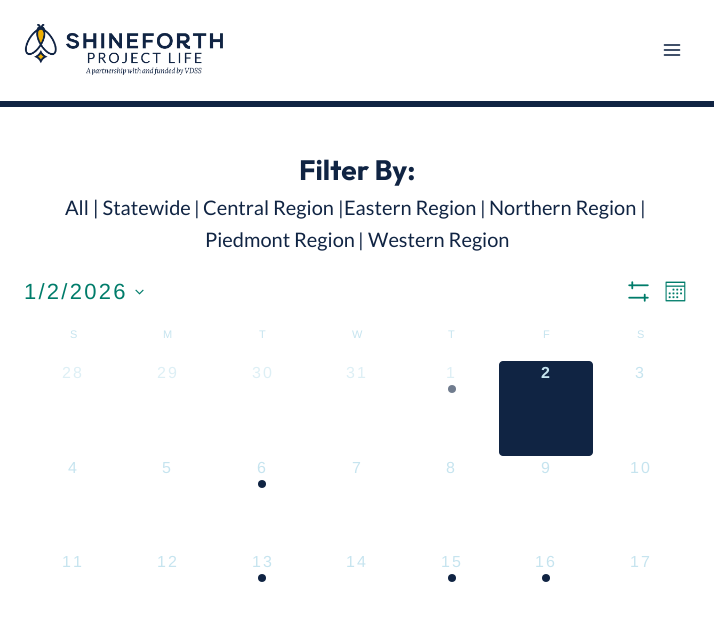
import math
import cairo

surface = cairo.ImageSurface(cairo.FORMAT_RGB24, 714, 621)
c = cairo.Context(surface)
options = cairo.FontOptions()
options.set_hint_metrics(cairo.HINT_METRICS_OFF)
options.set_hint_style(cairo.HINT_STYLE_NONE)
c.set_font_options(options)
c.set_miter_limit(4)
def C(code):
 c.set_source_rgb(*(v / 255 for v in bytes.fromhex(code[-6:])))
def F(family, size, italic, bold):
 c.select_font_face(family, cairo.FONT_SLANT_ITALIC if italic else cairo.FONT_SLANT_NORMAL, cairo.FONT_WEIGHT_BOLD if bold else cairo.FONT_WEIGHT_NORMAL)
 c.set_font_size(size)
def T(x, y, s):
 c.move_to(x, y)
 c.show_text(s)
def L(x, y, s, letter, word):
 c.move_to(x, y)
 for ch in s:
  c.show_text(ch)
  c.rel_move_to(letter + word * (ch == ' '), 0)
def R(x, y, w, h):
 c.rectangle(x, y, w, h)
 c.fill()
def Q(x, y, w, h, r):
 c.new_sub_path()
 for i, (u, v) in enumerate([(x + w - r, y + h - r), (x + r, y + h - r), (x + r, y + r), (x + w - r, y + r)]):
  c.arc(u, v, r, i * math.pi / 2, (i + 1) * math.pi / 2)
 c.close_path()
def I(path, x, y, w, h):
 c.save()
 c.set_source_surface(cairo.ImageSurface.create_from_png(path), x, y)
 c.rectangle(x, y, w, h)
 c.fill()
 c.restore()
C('ffffff')
c.paint()
C('102443')
R(0,101,714,6)
I('1.png',24,24,199,51)
I('2.png',663,44,18,12)
F('Outfit',28,0,1)
T(299,180,'Filter By:')
F('Lato',20,0,0)
T(65,215,'All | Statewide')
F('Lato',19,0,0)
T(194,215,'|')
F('Lato',20,0,0)
T(203,215,'Central Region')
F('Lato',19,0,0)
T(338,215,'|')
F('Lato',20,0,0)
T(344,215,'Eastern Region')
F('Lato',19,0,0)
T(480,215,'|')
F('Lato',20,0,0)
T(489,215,'Northern Region')
F('Lato',19,0,0)
T(640,215,'|')
F('Lato',20,0,0)
T(205,247,'Piedmont Region')
F('Lato',19,0,0)
T(358,247,'|')
F('Lato',20,0,0)
T(368,247,'Western Region')
F('Liberation Sans',22,0,0)
C('007c6a')
L(24,299,'1/2/2026',2.25,0)
I('3.png',135,289,9,6)
I('4.png',628,281,21,21)
I('5.png',665,281,21,21)
F('Liberation Sans',11,0,0)
C('c6e4ef')
T(70,338,'S')
T(163,338,'M')
T(259,338,'T')
T(352,338,'W')
T(448,338,'T')
T(543,338,'F')
T(637,338,'S')
F('Liberation Sans',16,0,0)
C('ddeff5')
L(62,378,'28',2,0)
L(157,378,'29',2,0)
L(252,378,'30',2,0)
L(346,378,'31',2,0)
L(446,378,'1',2,0)
C('707c8e')
c.new_path()
c.arc(452,389,4,0,2 * math.pi)
c.fill()
C('102443')
Q(499,361,94,95,4)
c.fill()
F('Liberation Sans',16,0,1)
C('c6e4ef')
L(541,378,'2',2,0)
F('Liberation Sans',16,0,0)
L(635,378,'3',2,0)
L(68,473,'4',2,0)
L(162,473,'5',2,0)
L(257,473,'6',2,0)
C('102443')
c.new_path()
c.arc(262,484,4,0,2 * math.pi)
c.fill()
C('c6e4ef')
L(352,473,'7',2,0)
L(446,473,'8',2,0)
L(541,473,'9',2,0)
L(630,473,'10',2,0)
L(62,567,'11',2,0)
L(157,567,'12',2,0)
L(252,567,'13',2,0)
C('102443')
c.new_path()
c.arc(262,578,4,0,2 * math.pi)
c.fill()
C('c6e4ef')
L(346,567,'14',2,0)
L(441,567,'15',2,0)
C('102443')
c.new_path()
c.arc(452,578,4,0,2 * math.pi)
c.fill()
C('c6e4ef')
L(535,567,'16',2,0)
C('102443')
c.new_path()
c.arc(546,578,4,0,2 * math.pi)
c.fill()
C('c6e4ef')
L(630,567,'17',2,0)
surface.write_to_png('o.png')
